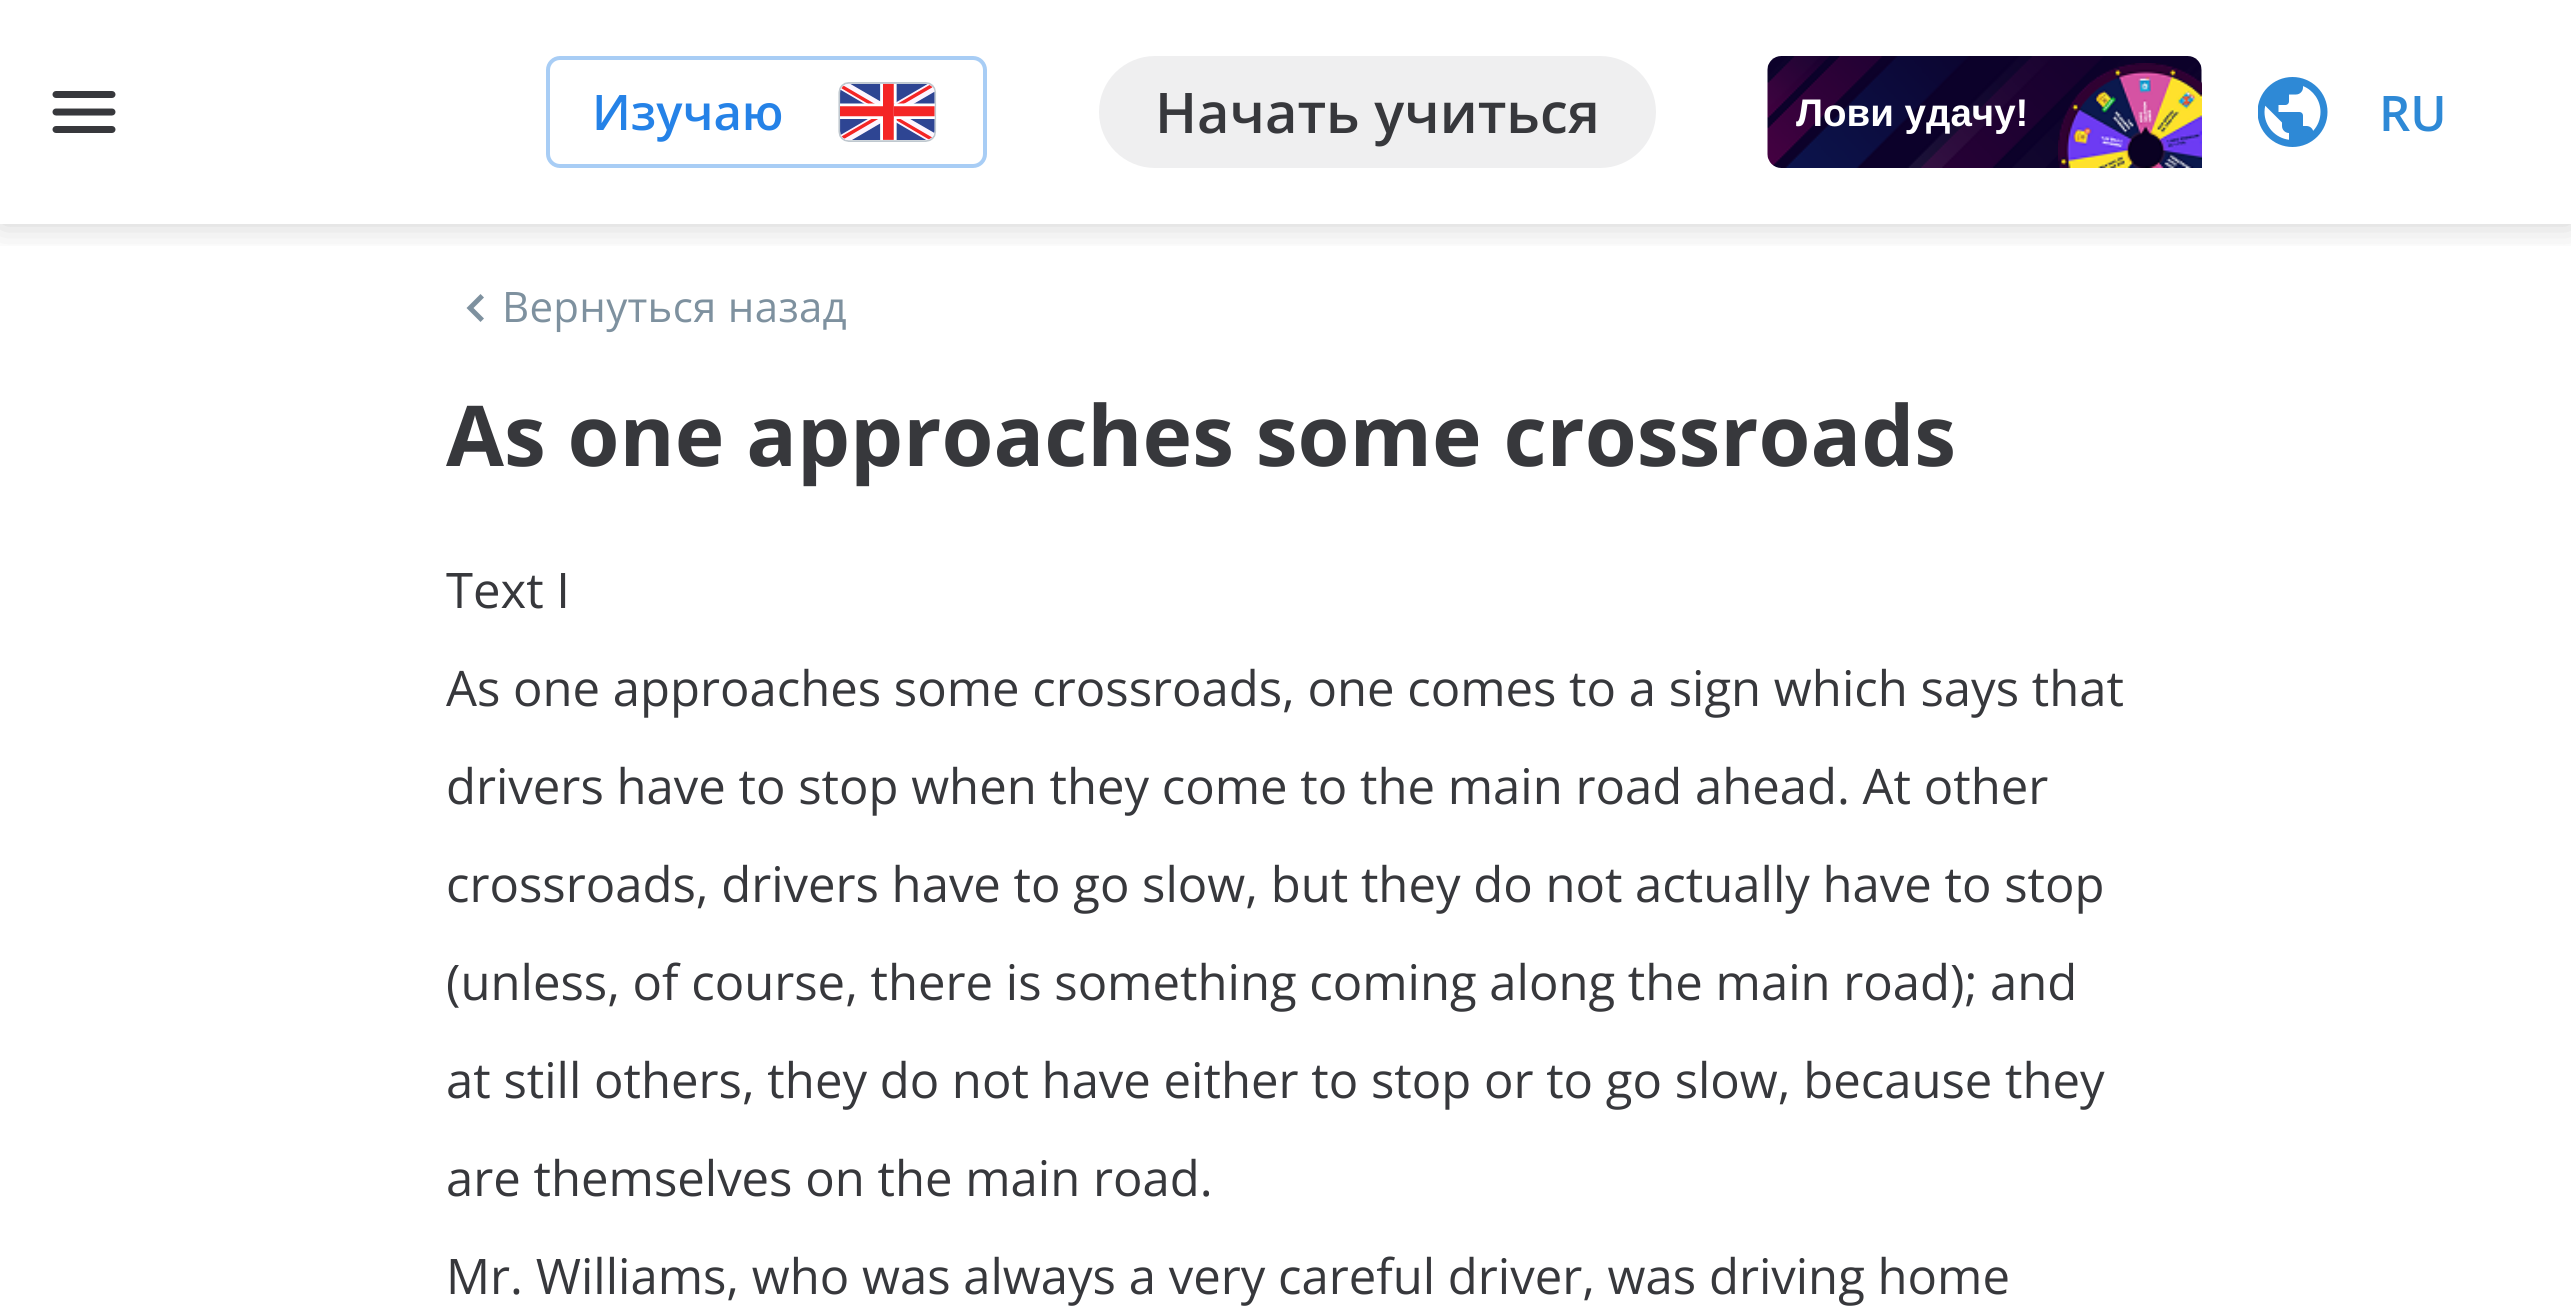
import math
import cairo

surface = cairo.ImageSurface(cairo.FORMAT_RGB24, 2571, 1311)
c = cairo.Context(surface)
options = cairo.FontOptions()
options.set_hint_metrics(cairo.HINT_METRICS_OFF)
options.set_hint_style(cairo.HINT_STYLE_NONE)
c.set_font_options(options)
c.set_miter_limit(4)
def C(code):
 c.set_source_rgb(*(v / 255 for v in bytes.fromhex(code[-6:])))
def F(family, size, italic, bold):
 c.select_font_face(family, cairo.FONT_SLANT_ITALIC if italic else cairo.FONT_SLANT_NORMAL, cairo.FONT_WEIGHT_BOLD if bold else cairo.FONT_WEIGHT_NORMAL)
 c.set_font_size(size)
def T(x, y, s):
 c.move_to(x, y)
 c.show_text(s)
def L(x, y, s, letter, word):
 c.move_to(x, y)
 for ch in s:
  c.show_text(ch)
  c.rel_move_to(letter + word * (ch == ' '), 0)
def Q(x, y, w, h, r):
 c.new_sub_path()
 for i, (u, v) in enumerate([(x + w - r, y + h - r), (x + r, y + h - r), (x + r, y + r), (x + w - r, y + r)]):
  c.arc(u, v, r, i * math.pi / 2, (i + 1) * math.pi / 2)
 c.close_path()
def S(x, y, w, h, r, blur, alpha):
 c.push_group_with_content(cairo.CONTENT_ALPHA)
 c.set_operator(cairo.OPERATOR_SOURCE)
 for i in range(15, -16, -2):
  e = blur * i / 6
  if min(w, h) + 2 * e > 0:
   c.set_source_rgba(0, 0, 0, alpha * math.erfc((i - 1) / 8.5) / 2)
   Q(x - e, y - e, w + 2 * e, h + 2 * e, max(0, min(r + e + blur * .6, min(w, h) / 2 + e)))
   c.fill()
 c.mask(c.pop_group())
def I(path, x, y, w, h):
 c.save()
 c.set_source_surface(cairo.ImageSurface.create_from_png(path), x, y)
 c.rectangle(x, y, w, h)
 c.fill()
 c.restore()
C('ffffff')
c.paint()
c.save()
c.rectangle(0,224,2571,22)
c.clip()
C('000000')
S(0,0,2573,224,0,17.5,.2)
c.restore()
I('1.png',52,91,64,42)
Q(548,58,437,108,12)
C('a8cdf5')
c.set_line_width(4)
c.stroke()
F('Open Sans SemiBold',49,0,0)
C('2582e7')
T(592,130,'Изучаю')
I('2.png',838,82,99,60)
C('efeff0')
Q(1099,56,557,112,56)
c.fill()
F('Open Sans SemiBold',56,0,0)
C('37383c')
T(1155,133,'Начать учиться')
I('3.png',1767,56,435,112)
F('Liberation Sans',38.5,0,1)
C('ffffff')
T(1796,126,'Лови удачу!')
I('4.png',2058,63,144,105)
I('5.png',2258,77,70,70)
F('Open Sans SemiBold',49,0,0)
C('2e89d6')
T(2379,131,'RU')
C('7e919f')
c.set_fill_rule(cairo.FILL_RULE_EVEN_ODD)
c.new_path()
c.move_to(484,318.5)
c.line_to(473.5,308)
c.line_to(484,297.5)
c.line_to(480.5,294)
c.line_to(466.5,308)
c.line_to(480.5,322)
c.close_path()
c.fill()
F('Open Sans',42,0,0)
L(502,322,'Вернуться назад',.3,0)
F('Open Sans',84,0,1)
C('37383c')
T(446,466,'As one approaches some crossroads')
F('Open Sans',49,0,0)
T(446,608,'Text I')
T(446,706,'As one approaches some crossroads, one comes to a sign which says that')
T(446,804,'drivers have to stop when they come to the main road ahead. At other')
T(446,902,'crossroads, drivers have to go slow, but they do not actually have to stop')
T(446,1000,'(unless, of course, there is something coming along the main road); and')
T(446,1098,'at still others, they do not have either to stop or to go slow, because they')
T(446,1196,'are themselves on the main road.')
T(446,1294,'Mr. Williams, who was always a very careful driver, was driving home')
surface.write_to_png('o.png')
